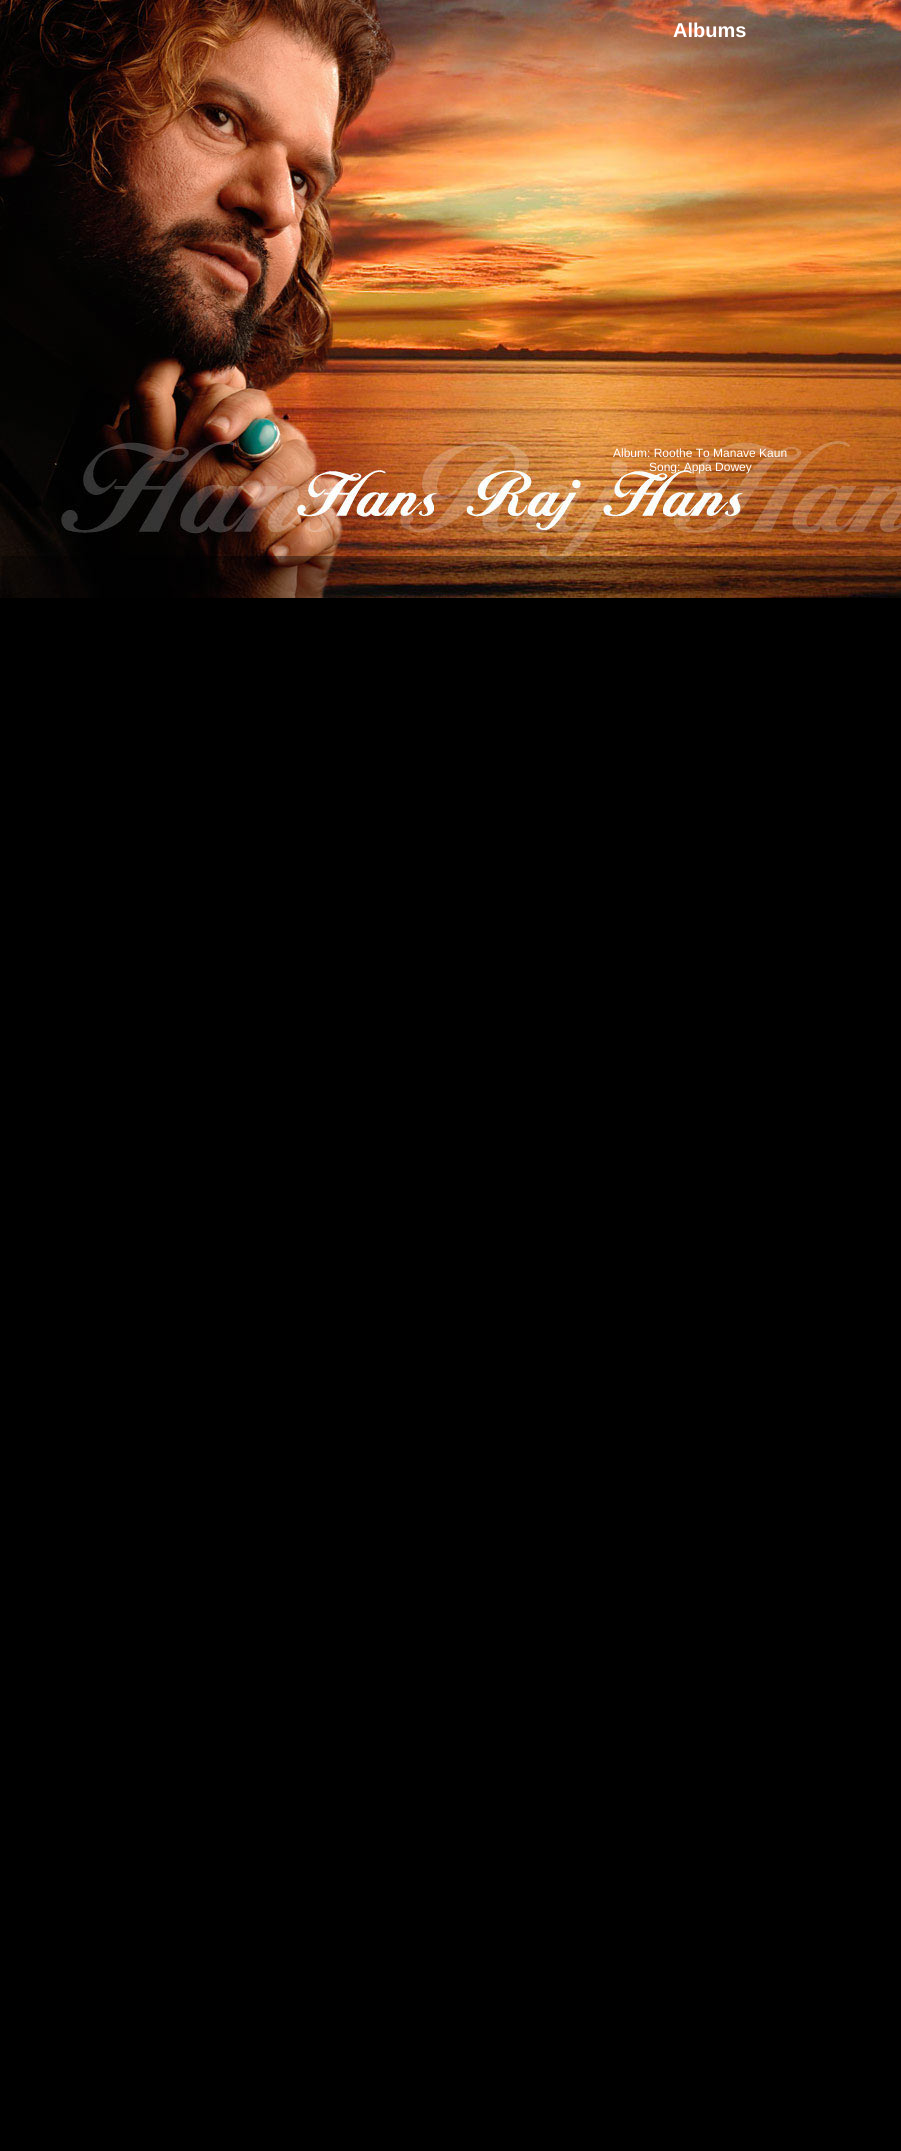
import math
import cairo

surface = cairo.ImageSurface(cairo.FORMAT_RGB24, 901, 2151)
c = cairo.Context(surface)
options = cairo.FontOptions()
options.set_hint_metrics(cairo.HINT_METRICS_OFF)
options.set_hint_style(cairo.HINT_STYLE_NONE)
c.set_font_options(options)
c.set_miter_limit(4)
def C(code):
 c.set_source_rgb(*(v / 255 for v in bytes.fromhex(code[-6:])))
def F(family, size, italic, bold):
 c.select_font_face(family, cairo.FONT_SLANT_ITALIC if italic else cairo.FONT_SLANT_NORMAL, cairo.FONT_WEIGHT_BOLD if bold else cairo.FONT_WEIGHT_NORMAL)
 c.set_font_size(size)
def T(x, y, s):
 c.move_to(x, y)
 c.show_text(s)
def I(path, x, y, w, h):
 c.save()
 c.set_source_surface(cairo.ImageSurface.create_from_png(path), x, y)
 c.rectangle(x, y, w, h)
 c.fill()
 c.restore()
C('000000')
c.paint()
I('1.png',0,0,901,598)
F('Liberation Sans',20,0,1)
C('ffffff')
T(673,37,'Albums')
F('Liberation Sans',12,0,0)
T(613,457,'Album: Roothe To Manave Kaun')
T(649,471,'Song: Appa Dowey')
surface.write_to_png('o.png')
